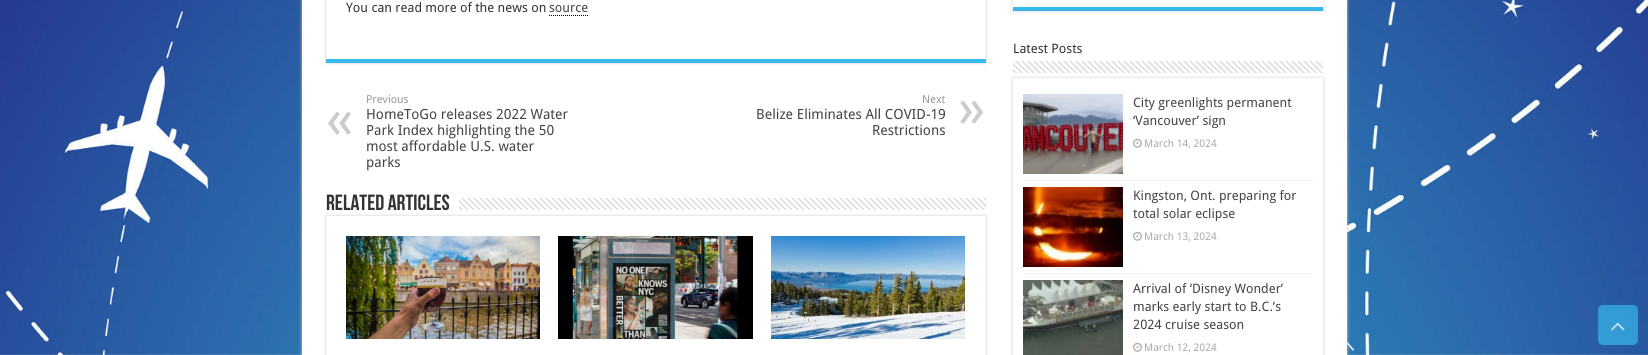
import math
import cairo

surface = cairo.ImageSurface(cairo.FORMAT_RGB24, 1648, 355)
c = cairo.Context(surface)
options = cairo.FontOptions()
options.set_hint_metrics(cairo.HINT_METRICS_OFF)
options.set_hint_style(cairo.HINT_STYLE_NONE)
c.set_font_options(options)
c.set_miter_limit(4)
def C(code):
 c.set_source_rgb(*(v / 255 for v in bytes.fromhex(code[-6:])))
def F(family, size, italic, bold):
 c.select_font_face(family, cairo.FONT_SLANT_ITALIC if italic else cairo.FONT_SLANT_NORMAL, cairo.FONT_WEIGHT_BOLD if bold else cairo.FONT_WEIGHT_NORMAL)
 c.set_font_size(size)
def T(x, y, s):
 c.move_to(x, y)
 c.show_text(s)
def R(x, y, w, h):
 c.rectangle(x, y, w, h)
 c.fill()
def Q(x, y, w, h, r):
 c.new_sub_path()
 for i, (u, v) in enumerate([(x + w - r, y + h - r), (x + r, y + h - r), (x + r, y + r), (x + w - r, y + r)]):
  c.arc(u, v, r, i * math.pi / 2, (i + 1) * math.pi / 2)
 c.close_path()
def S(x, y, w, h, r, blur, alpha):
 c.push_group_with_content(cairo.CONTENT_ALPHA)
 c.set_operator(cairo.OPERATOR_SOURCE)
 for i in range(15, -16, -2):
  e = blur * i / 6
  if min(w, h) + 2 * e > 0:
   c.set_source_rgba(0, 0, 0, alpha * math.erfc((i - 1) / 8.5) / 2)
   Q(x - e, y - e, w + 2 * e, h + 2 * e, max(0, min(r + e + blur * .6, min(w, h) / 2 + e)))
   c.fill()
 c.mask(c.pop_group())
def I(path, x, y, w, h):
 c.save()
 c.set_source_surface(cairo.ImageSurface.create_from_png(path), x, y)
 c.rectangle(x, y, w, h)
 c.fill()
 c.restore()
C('ffffff')
c.paint()
I('1.png',0,0,1648,355)
C('cacaca')
S(302,-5,1045,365,0,1.5,1)
C('ffffff')
R(302,0,1045,355)
c.save()
c.set_fill_rule(cairo.FILL_RULE_EVEN_ODD)
c.new_path()
c.move_to(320,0)
c.line_to(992,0)
c.line_to(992,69)
c.line_to(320,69)
c.close_path()
c.move_to(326,-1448)
c.line_to(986,-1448)
c.line_to(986,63)
c.line_to(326,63)
c.close_path()
c.clip()
C('cacaca')
S(326,-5,660,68,0,1.5,1)
c.restore()
C('37b8eb')
R(326,59,660,4)
F('Droid Sans',13,0,0)
C('333333')
T(346,12,'You can read more of the news on')
C('444444')
T(549,12,'source')
c.new_path()
c.move_to(549,15.5)
c.line_to(588,15.5)
C('000000')
c.set_line_width(1)
c.set_dash([1,1])
c.stroke()
F('Droid Sans',11,0,0)
C('999999')
T(366,103,'Previous')
F('Droid Sans',56,0,0)
C('cccccc')
T(326,138,'«')
F('Droid Sans',14,0,0)
C('444444')
T(366,119,'HomeToGo releases 2022 Water')
T(366,135,'Park Index highlighting the 50')
T(366,151,'most affordable U.S. water')
T(366,167,'parks')
F('Droid Sans',11,0,0)
C('999999')
T(922,103,'Next')
F('Droid Sans',56,0,0)
C('cccccc')
T(958,127,'»')
F('Droid Sans',14,0,0)
C('444444')
T(756,119,'Belize Eliminates All COVID-19')
T(872,135,'Restrictions')
c.save()
c.set_fill_rule(cairo.FILL_RULE_EVEN_ODD)
c.new_path()
c.move_to(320,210)
c.line_to(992,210)
c.line_to(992,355)
c.line_to(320,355)
c.close_path()
c.move_to(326,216)
c.line_to(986,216)
c.line_to(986,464)
c.line_to(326,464)
c.close_path()
c.clip()
C('cacaca')
S(326,216,660,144,0,1.5,1)
c.restore()
F('Bebas Neue',22,0,1)
C('333333')
T(326,210,'Related Articles')
I('2.png',459,198,527,12)
I('3.png',346,236,194,103)
C('000000')
R(558,236,195,103)
I('4.png',572,236,166,103)
I('5.png',771,236,194,103)
c.save()
c.set_fill_rule(cairo.FILL_RULE_EVEN_ODD)
c.new_path()
c.move_to(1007,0)
c.line_to(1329,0)
c.line_to(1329,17)
c.line_to(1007,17)
c.close_path()
c.move_to(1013,-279)
c.line_to(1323,-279)
c.line_to(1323,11)
c.line_to(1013,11)
c.close_path()
c.clip()
C('cacaca')
S(1013,-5,310,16,0,1.5,1)
c.restore()
C('37b8eb')
R(1013,7,310,4)
F('Droid Sans',13,0,0)
C('333333')
T(1013,53,'Latest Posts')
c.save()
c.set_fill_rule(cairo.FILL_RULE_EVEN_ODD)
c.new_path()
c.move_to(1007,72)
c.line_to(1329,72)
c.line_to(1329,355)
c.line_to(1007,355)
c.close_path()
c.move_to(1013,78)
c.line_to(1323,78)
c.line_to(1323,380)
c.line_to(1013,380)
c.close_path()
c.clip()
C('cacaca')
S(1013,78,310,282,0,1.5,1)
c.restore()
I('6.png',1013,61,310,12)
C('f2f2f2')
R(1023,180,290,1)
I('7.png',1023,94,100,80)
C('444444')
T(1133,107,'City greenlights permanent')
T(1133,125,'‘Vancouver’ sign')
I('8.png',1133,138,9,10)
F('Droid Sans',10.5,0,0)
C('aaaaaa')
T(1144,147,'March 14, 2024')
C('f2f2f2')
R(1023,273,290,1)
I('9.png',1023,187,100,80)
F('Droid Sans',13,0,0)
C('444444')
T(1133,200,'Kingston, Ont. preparing for')
T(1133,218,'total solar eclipse')
I('8.png',1133,231,9,10)
F('Droid Sans',10.5,0,0)
C('aaaaaa')
T(1144,240,'March 13, 2024')
I('10.png',1023,280,100,75)
F('Droid Sans',13,0,0)
C('444444')
T(1133,293,'Arrival of ‘Disney Wonder’')
T(1133,311,'marks early start to B.C.’s')
T(1133,329,'2024 cruise season')
I('8.png',1133,342,9,10)
F('Droid Sans',10.5,0,0)
C('aaaaaa')
T(1144,351,'March 12, 2024')
c.set_source_rgba(0.216,0.722,0.922,0.7)
Q(1598,305,40,40,5)
c.fill()
I('11.png',1611,322,14,9)
surface.write_to_png('o.png')
